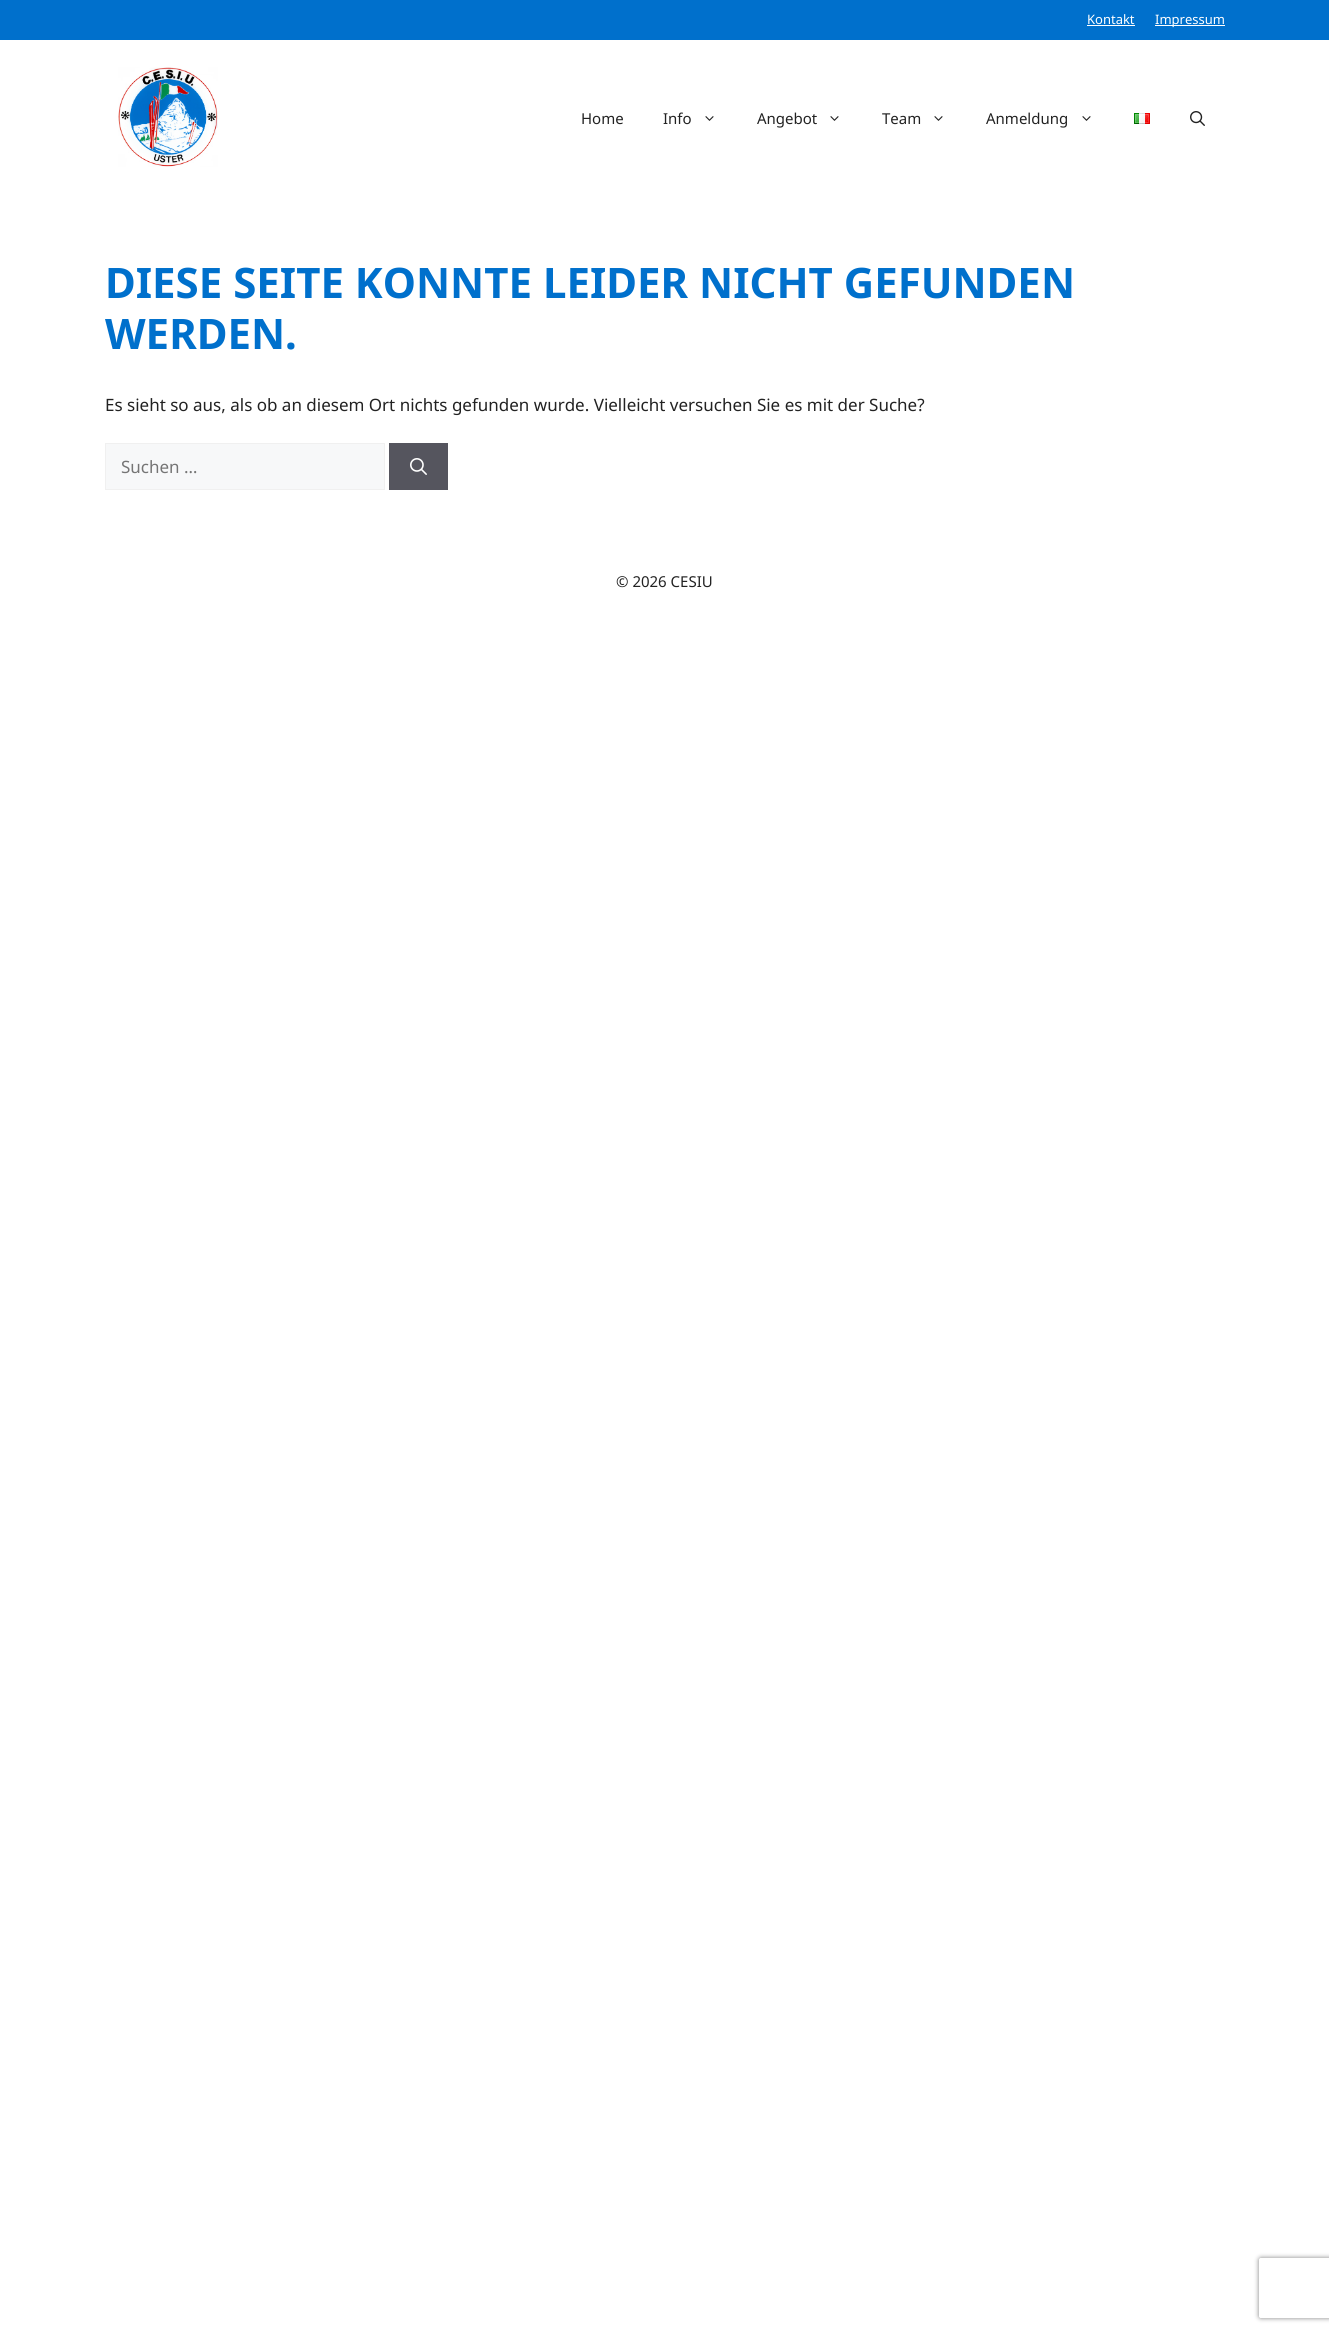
import math
import cairo

surface = cairo.ImageSurface(cairo.FORMAT_RGB24, 1329, 2332)
c = cairo.Context(surface)
options = cairo.FontOptions()
options.set_hint_metrics(cairo.HINT_METRICS_OFF)
options.set_hint_style(cairo.HINT_STYLE_NONE)
c.set_font_options(options)
c.set_miter_limit(4)
def C(code):
 c.set_source_rgb(*(v / 255 for v in bytes.fromhex(code[-6:])))
def F(family, size, italic, bold):
 c.select_font_face(family, cairo.FONT_SLANT_ITALIC if italic else cairo.FONT_SLANT_NORMAL, cairo.FONT_WEIGHT_BOLD if bold else cairo.FONT_WEIGHT_NORMAL)
 c.set_font_size(size)
def T(x, y, s):
 c.move_to(x, y)
 c.show_text(s)
def R(x, y, w, h):
 c.rectangle(x, y, w, h)
 c.fill()
def Q(x, y, w, h, r):
 c.new_sub_path()
 for i, (u, v) in enumerate([(x + w - r, y + h - r), (x + r, y + h - r), (x + r, y + r), (x + w - r, y + r)]):
  c.arc(u, v, r, i * math.pi / 2, (i + 1) * math.pi / 2)
 c.close_path()
def S(x, y, w, h, r, blur, alpha):
 c.push_group_with_content(cairo.CONTENT_ALPHA)
 c.set_operator(cairo.OPERATOR_SOURCE)
 for i in range(15, -16, -2):
  e = blur * i / 6
  if min(w, h) + 2 * e > 0:
   c.set_source_rgba(0, 0, 0, alpha * math.erfc((i - 1) / 8.5) / 2)
   Q(x - e, y - e, w + 2 * e, h + 2 * e, max(0, min(r + e + blur * .6, min(w, h) / 2 + e)))
   c.fill()
 c.mask(c.pop_group())
def I(path, x, y, w, h):
 c.save()
 c.set_source_surface(cairo.ImageSurface.create_from_png(path), x, y)
 c.rectangle(x, y, w, h)
 c.fill()
 c.restore()
C('ffffff')
c.paint()
C('0070cc')
R(0,0,1329,40)
F('Noto Sans',13,0,0)
C('ffffff')
T(1087,24,'Kontakt')
R(1087,25,48,1)
R(1155,25,70,1)
T(1155,24,'Impressum')
I('1.png',118,67,100,100)
F('Noto Sans',15,0,0)
C('222222')
T(581,124,'Home')
T(663,124,'Info')
I('2.png',705,116,9,5)
T(757,124,'Angebot')
I('2.png',830,116,9,5)
T(882,124,'Team')
I('2.png',934,116,9,5)
T(986,124,'Anmeldung')
I('2.png',1082,116,9,5)
I('3.png',1134,113,16,11)
I('4.png',1190,111,15,15)
F('Noto Sans',42,0,1)
C('0070cc')
T(105,298,'DIESE SEITE KONNTE LEIDER NICHT GEFUNDEN')
T(105,349,'WERDEN.')
F('Noto Sans',17,0,0)
C('222222')
T(105,411,'Es sieht so aus, als ob an diesem Ort nichts gefunden wurde. Vielleicht versuchen Sie es mit der Suche?')
C('f7f8f9')
c.rectangle(105.5,443.5,279,46)
c.fill_preserve()
C('f0f0f0')
c.set_line_width(1)
c.stroke()
C('757575')
T(121,473,'Suchen …')
C('55555e')
R(389,443,59,47)
I('5.png',410,458,17,17)
F('Noto Sans',15,0,0)
C('222222')
T(616,587,'© 2026 CESIU')
c.save()
c.set_fill_rule(cairo.FILL_RULE_EVEN_ODD)
c.new_path()
c.move_to(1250,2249)
c.line_to(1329,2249)
c.line_to(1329,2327)
c.line_to(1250,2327)
c.close_path()
c.move_to(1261,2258)
c.line_to(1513,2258)
c.curve_to(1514,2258,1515,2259,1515,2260)
c.line_to(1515,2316)
c.curve_to(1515,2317,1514,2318,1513,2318)
c.line_to(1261,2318)
c.curve_to(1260,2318,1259,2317,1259,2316)
c.line_to(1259,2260)
c.curve_to(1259,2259,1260,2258,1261,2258)
c.close_path()
c.clip()
C('808080')
S(1259,2258,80,60,2,2.5,1)
c.restore()
surface.write_to_png('o.png')
